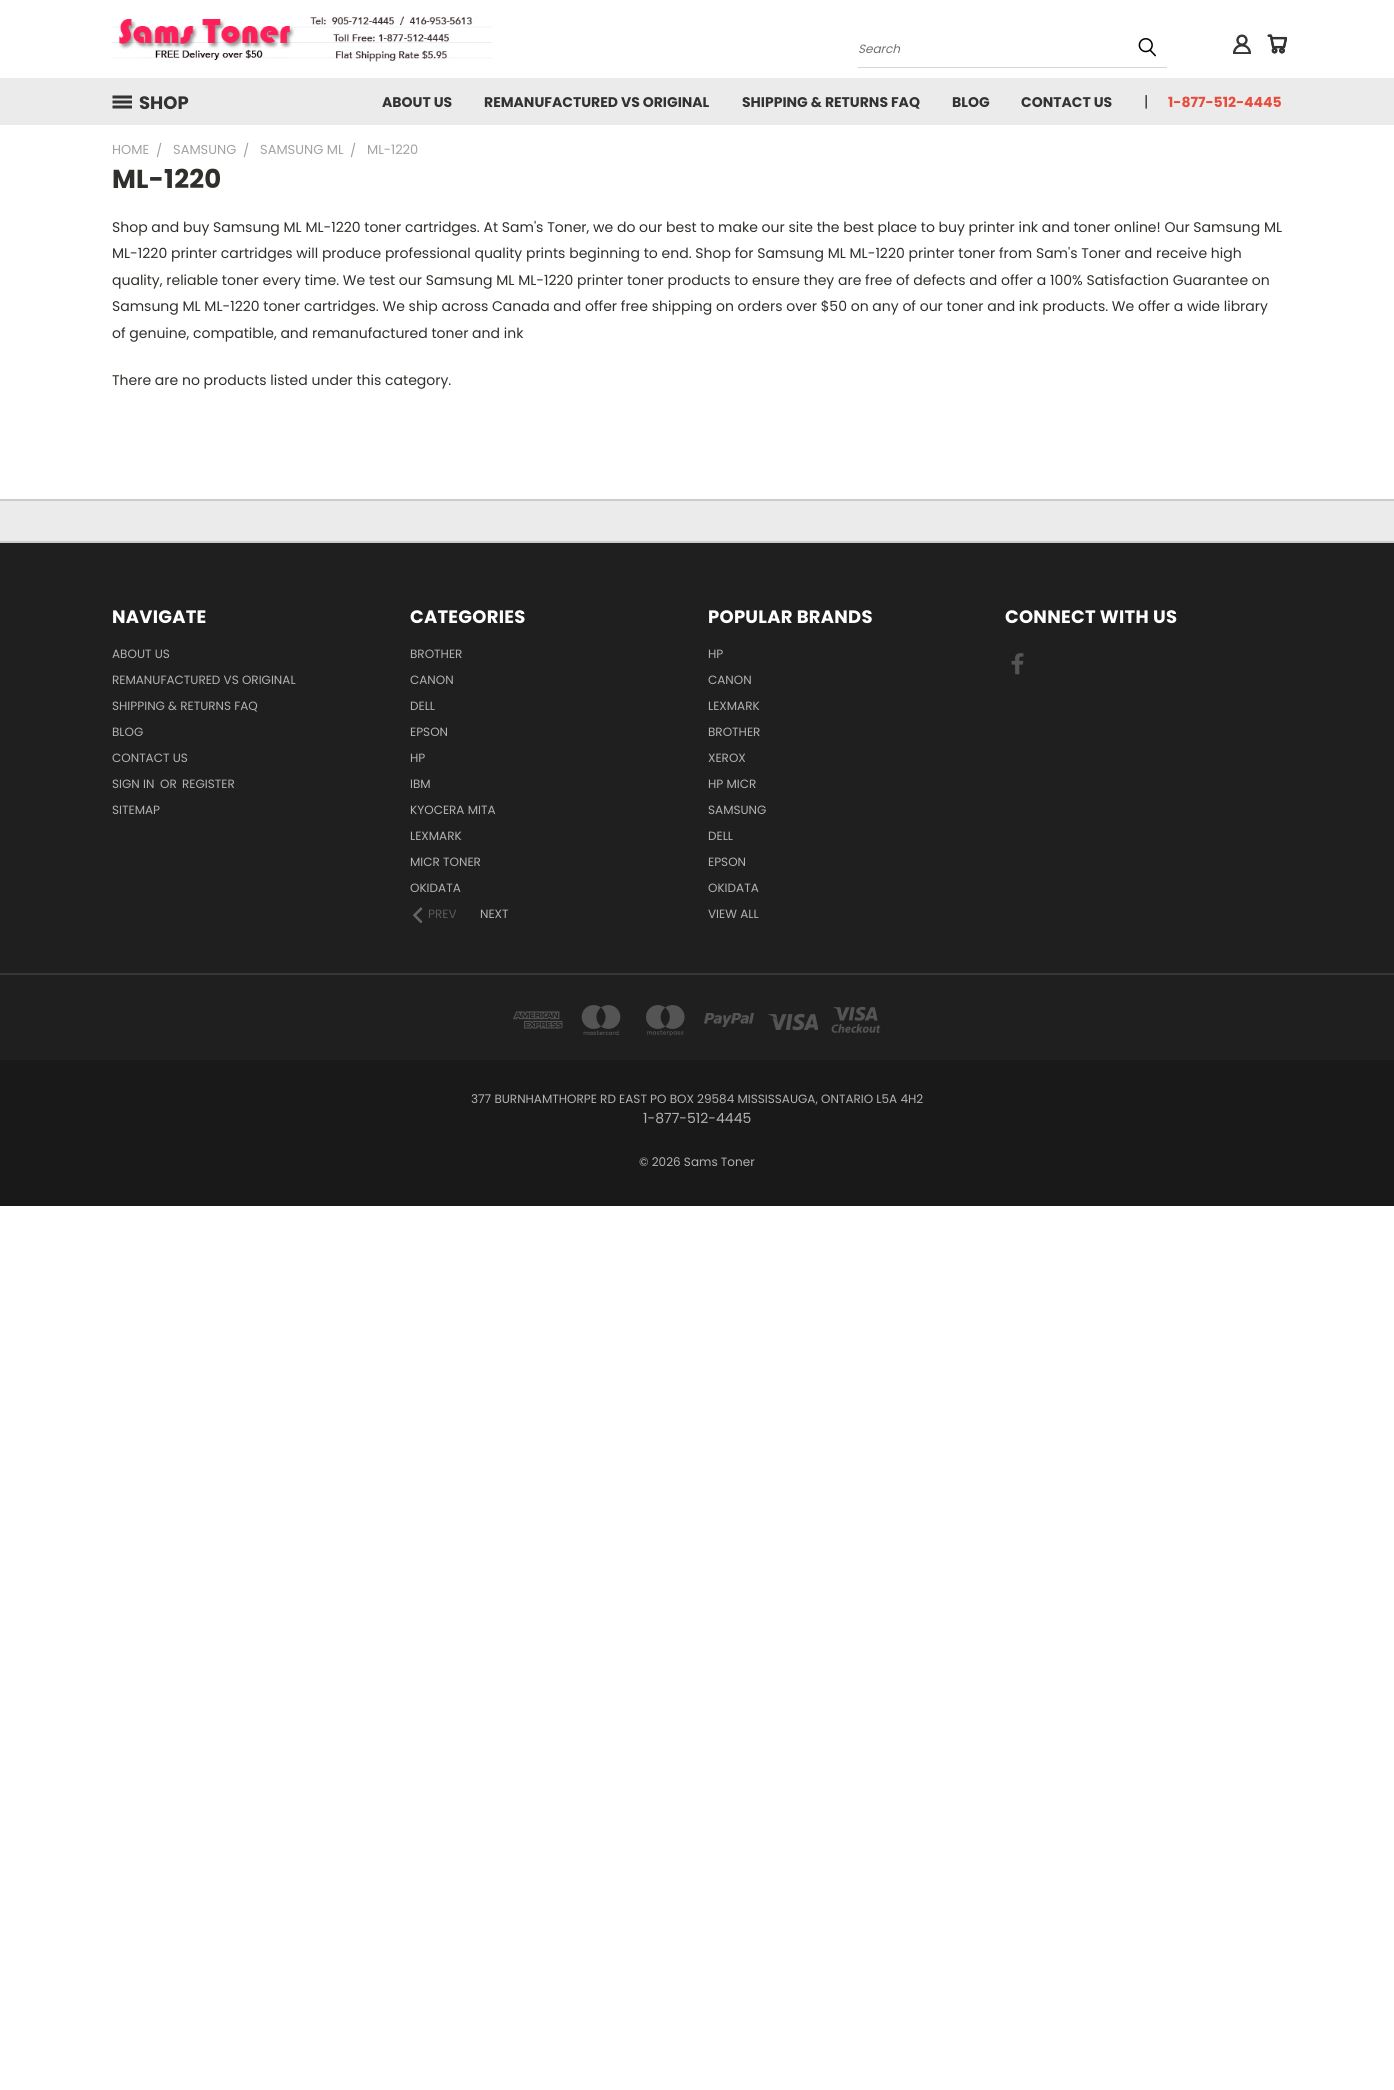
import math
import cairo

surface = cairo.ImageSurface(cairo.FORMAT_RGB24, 1394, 2090)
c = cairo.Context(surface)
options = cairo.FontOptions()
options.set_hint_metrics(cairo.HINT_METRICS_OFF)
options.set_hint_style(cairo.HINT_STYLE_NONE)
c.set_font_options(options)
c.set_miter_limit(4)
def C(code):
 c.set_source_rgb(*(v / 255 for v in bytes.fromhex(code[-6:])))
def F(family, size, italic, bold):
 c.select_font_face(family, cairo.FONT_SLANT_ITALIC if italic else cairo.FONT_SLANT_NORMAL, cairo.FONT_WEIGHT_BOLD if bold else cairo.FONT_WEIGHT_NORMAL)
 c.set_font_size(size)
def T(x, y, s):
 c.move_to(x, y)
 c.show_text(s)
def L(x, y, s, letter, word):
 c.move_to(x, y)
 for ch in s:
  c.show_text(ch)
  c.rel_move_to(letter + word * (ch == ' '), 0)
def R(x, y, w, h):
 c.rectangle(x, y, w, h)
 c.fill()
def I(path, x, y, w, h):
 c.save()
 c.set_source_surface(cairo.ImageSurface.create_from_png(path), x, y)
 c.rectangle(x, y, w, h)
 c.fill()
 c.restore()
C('ffffff')
c.paint()
I('1.png',112,16,380,46)
C('d7d7d7')
R(858,67,309,1)
F('Poppins',12,1,0)
C('70706e')
T(858,53,'Search')
I('2.png',1138,38,18,19)
I('3.png',1233,34,18,20)
I('4.png',1267,34,20,20)
C('ebebeb')
R(0,78,1394,47)
I('5.png',112,95,20,14)
F('Poppins',18,0,1)
C('333333')
T(139,109,'SHOP')
F('Poppins',14,0,1)
T(382,107,'ABOUT US')
T(484,107,'REMANUFACTURED VS ORIGINAL')
T(742,107,'SHIPPING & RETURNS FAQ')
T(952,107,'BLOG')
T(1021,107,'CONTACT US')
F('Poppins',15,0,0)
C('2f2f2b')
T(1144,107,'|')
F('Poppins',14,0,1)
C('e74c3c')
T(1168,107,'1-877-512-4445')
F('Poppins',13,0,0)
C('a2a2a2')
T(112,154,'HOME')
T(156,155,'/')
T(173,154,'SAMSUNG')
T(243,155,'/')
T(260,154,'SAMSUNG ML')
T(350,155,'/')
T(367,154,'ML-1220')
F('Poppins',26,0,1)
C('2f2f2b')
L(112,188,'ML-1220',.25,0)
F('Poppins',14,0,0)
T(112,232,'Shop and buy Samsung ML ML-1220 toner cartridges. At Sam\'s Toner, we do our best to make our site the best place to buy printer ink and toner online! Our Samsung ML')
T(112,258,'ML-1220 printer cartridges will produce professional quality prints beginning to end. Shop for Samsung ML ML-1220 printer toner from Sam\'s Toner and receive high')
T(112,285,'quality, reliable toner every time. We test our Samsung ML ML-1220 printer toner products to ensure they are free of defects and offer a 100% Satisfaction Guarantee on')
T(112,311,'Samsung ML ML-1220 toner cartridges. We ship across Canada and offer free shipping on orders over $50 on any of our toner and ink products. We offer a wide library')
T(112,338,'of genuine, compatible, and remanufactured toner and ink')
T(112,385,'There are no products listed under this category.')
C('ebebeb')
R(0,501,1394,40)
C('cdcccc')
R(0,499,1394,2)
C('1f1f1f')
R(0,543,1394,517)
C('cdcccc')
R(0,541,1394,2)
F('Poppins',18,0,1)
C('ffffff')
L(112,623,'NAVIGATE',.25,0)
F('Poppins',12,0,0)
C('b2b2b2')
T(112,658,'ABOUT US')
T(112,684,'REMANUFACTURED VS ORIGINAL')
T(112,710,'SHIPPING & RETURNS FAQ')
T(112,736,'BLOG')
T(112,762,'CONTACT US')
T(112,788,'SIGN IN')
T(160,788,'OR')
T(182,788,'REGISTER')
T(112,814,'SITEMAP')
F('Poppins',18,0,1)
C('ffffff')
L(410,623,'CATEGORIES',.25,0)
F('Poppins',12,0,0)
C('b2b2b2')
T(410,658,'BROTHER')
T(410,684,'CANON')
T(410,710,'DELL')
T(410,736,'EPSON')
T(410,762,'HP')
T(410,788,'IBM')
T(410,814,'KYOCERA MITA')
T(410,840,'LEXMARK')
T(410,866,'MICR TONER')
T(410,892,'OKIDATA')
I('6.png',413,907,10,16)
C('5a5a5a')
T(428,918,'PREV')
C('b2b2b2')
T(480,918,'NEXT')
F('Poppins',18,0,1)
C('ffffff')
L(708,623,'POPULAR BRANDS',.25,0)
F('Poppins',12,0,0)
C('b2b2b2')
T(708,658,'HP')
T(708,684,'CANON')
T(708,710,'LEXMARK')
T(708,736,'BROTHER')
T(708,762,'XEROX')
T(708,788,'HP MICR')
T(708,814,'SAMSUNG')
T(708,840,'DELL')
T(708,866,'EPSON')
T(708,892,'OKIDATA')
T(708,918,'VIEW ALL')
F('Poppins',18,0,1)
C('ffffff')
L(1005,623,'CONNECT WITH US',.25,0)
I('7.png',1011,653,13,22)
C('363636')
R(0,973,1394,2)
I('8.png',513,1011,50,18)
I('9.png',581,1005,40,30)
I('10.png',646,1005,39,31)
I('11.png',704,1013,50,14)
I('12.png',768,1013,50,18)
I('13.png',831,1006,50,27)
C('191919')
R(0,1060,1394,146)
F('Poppins',12,0,0)
C('b2b2b2')
T(471,1103,'377 BURNHAMTHORPE RD EAST PO BOX 29584 MISSISSAUGA, ONTARIO L5A 4H2')
F('Poppins',14,0,0)
T(643,1123,'1-877-512-4445')
F('Poppins',12,0,0)
T(639,1166,'© 2026 Sams Toner')
surface.write_to_png('o.png')
